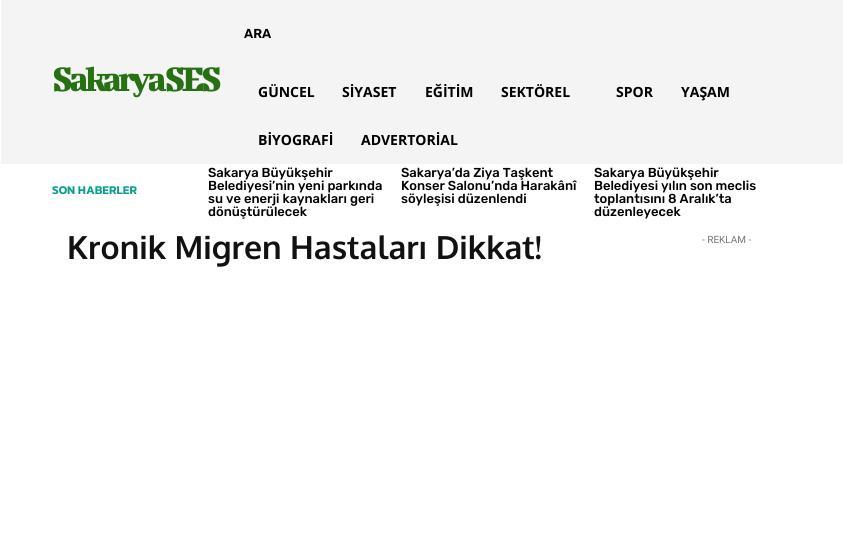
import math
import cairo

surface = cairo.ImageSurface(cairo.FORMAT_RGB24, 843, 534)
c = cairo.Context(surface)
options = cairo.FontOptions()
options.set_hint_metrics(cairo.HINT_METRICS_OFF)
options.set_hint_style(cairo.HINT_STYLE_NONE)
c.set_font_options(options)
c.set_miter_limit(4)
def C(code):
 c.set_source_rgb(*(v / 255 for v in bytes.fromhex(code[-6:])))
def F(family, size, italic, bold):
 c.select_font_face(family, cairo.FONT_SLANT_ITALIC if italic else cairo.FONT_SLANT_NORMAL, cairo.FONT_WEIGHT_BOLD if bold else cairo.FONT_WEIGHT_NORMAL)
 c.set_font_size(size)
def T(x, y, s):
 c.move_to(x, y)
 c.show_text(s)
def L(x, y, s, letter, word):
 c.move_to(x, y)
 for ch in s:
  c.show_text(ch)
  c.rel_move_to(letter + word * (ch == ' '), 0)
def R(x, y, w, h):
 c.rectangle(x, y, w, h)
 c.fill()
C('ffffff')
c.paint()
C('f4f4f4')
R(1,0,842,164)
F('Bigshot One',38,0,0)
C('277013')
L(52,91,'Sakarya SES',-4,0)
F('Rubik SemiBold',13,0,0)
C('000000')
T(244,38,'ARA')
F('Open Sans',14,0,1)
T(258,97,'GÜNCEL')
T(342,97,'SİYASET')
T(425,97,'EĞİTİM')
T(501,97,'SEKTÖREL')
T(616,97,'SPOR')
T(681,97,'YAŞAM')
T(258,145,'BİYOGRAFİ')
T(361,145,'ADVERTORİAL')
F('Kanit SemiBold',12,0,0)
C('099f8a')
T(52,194,'SON HABERLER')
F('Rubik Medium',13,0,0)
C('000000')
T(208,177,'Sakarya Büyükşehir')
T(208,190,'Belediyesi’nin yeni parkında')
T(208,203,'su ve enerji kaynakları geri')
T(208,216,'dönüştürülecek')
T(401,177,'Sakarya’da Ziya Taşkent')
T(401,190,'Konser Salonu’nda Harakânî')
T(401,203,'söyleşisi düzenlendi')
T(594,177,'Sakarya Büyükşehir')
T(594,190,'Belediyesi yılın son meclis')
T(594,203,'toplantısını 8 Aralık’ta')
T(594,216,'düzenleyecek')
F('Oxygen',32,0,1)
C('111111')
T(67,259,'Kronik Migren Hastaları Dikkat!')
F('Roboto',10,0,0)
C('767676')
T(702,243,'- REKLAM -')
surface.write_to_png('o.png')
